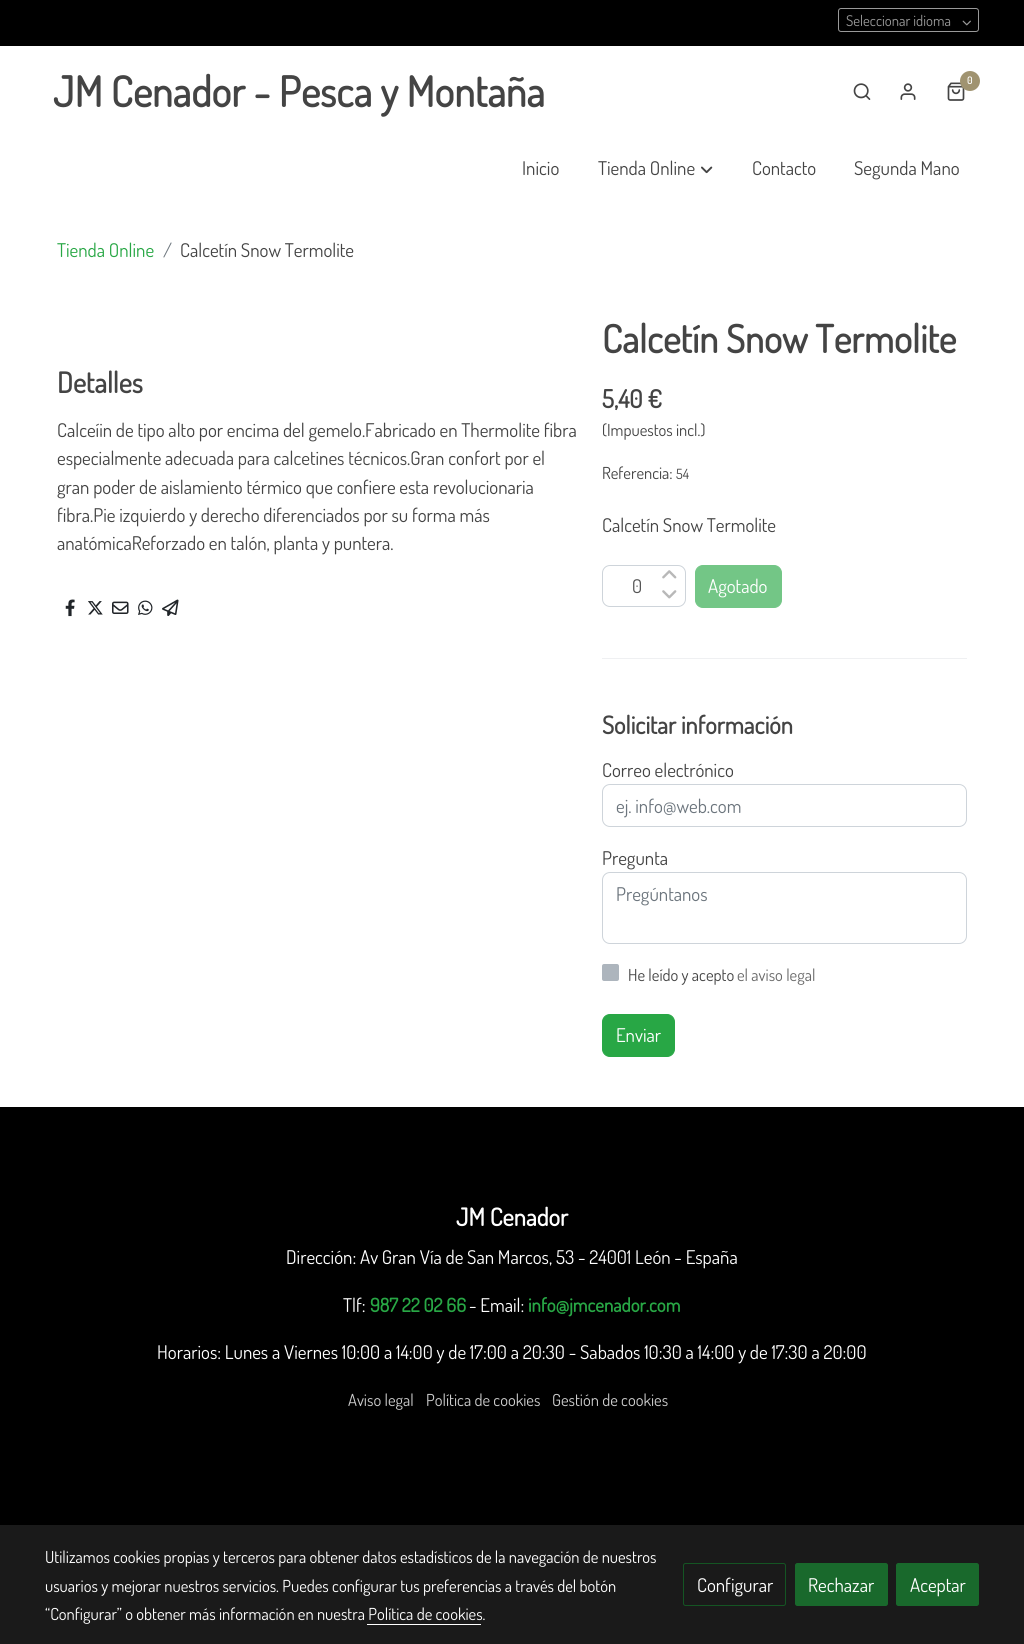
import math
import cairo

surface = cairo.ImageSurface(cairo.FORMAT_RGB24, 1024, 1644)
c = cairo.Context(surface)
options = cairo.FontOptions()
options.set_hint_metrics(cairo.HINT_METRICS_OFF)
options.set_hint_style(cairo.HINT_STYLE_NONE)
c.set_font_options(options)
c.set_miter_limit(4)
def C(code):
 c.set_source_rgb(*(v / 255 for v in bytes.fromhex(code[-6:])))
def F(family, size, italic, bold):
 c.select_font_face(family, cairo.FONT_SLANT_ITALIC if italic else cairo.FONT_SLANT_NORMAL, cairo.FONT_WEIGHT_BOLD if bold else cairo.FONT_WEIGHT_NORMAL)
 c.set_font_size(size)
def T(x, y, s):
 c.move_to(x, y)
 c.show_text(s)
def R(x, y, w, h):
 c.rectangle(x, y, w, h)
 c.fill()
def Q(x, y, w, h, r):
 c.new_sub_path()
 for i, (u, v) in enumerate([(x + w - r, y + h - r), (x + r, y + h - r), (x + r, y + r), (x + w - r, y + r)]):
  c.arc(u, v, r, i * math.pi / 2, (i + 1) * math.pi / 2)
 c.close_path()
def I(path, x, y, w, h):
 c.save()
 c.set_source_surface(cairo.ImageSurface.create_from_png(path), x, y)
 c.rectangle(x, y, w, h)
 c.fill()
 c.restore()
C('ffffff')
c.paint()
C('000000')
R(0,0,1024,46)
Q(838.5,8.5,140,23,2.5)
C('999999')
c.set_line_width(1)
c.stroke()
F('Dosis',14.75,0,0)
T(846,26,'Seleccionar idioma')
I('1.png',962,20,9,6)
F('Dosis',42,0,1)
C('444444')
T(53,107,'JM Cenador - Pesca y Montaña')
I('2.png',947,82,18,19)
C('a09370')
c.arc(970,81,10,0,2 * math.pi)
c.fill()
F('Dosis',10,0,1)
C('ffffff')
T(967,84,'0')
I('3.png',853,83,18,17)
I('4.png',900,83,16,17)
F('Dosis',18.9,0,0)
C('444444')
T(522,175,'Inicio')
T(598,175,'Tienda Online')
I('5.png',701,166,12,8)
T(752,175,'Contacto')
T(854,175,'Segunda Mano')
C('28a745')
T(57,257,'Tienda Online')
C('6c757d')
T(163,257,'/')
C('444444')
T(180,257,'Calcetín Snow Termolite')
F('Dosis',28.5,0,1)
T(57,393,'Detalles')
F('Dosis',18.9,0,0)
T(57,437,'Calceíin de tipo alto por encima del gemelo.Fabricado en Thermolite fibra')
T(57,465,'especialmente adecuada para calcetines técnicos.Gran confort por el')
T(57,494,'gran poder de aislamiento térmico que confiere esta revolucionaria')
T(57,522,'fibra.Pie izquierdo y derecho diferenciados por su forma más')
T(57,550,'anatómicaReforzado en talón, planta y puntera.')
I('6.png',65,599,10,18)
I('7.png',88,601,15,14)
I('8.png',112,601,17,13)
I('9.png',138,600,15,15)
I('10.png',162,599,17,17)
F('Dosis',38.5,0,1)
T(602,353,'Calcetín Snow Termolite')
F('Dosis',25,0,1)
T(602,408,'5,40 €')
F('Dosis',16.55,0,0)
T(602,436,'(Impuestos incl.)')
T(602,479,'Referencia:')
F('Dosis',14,0,0)
T(676,479,'54')
F('Dosis',18.9,0,0)
T(602,532,'Calcetín Snow Termolite')
Q(602.5,565.5,83,41,7.5)
C('ced4da')
c.stroke()
C('545454')
T(632,593,'0')
I('11.png',662,570,15,9)
I('12.png',662,590,15,9)
C('73c686')
Q(695.5,565.5,86,42,7.5)
c.fill_preserve()
c.stroke()
C('ffffff')
T(708,593,'Agotado')
C('eff0f2')
R(602,658,365,1)
F('Dosis',24.5,0,1)
C('444444')
T(602,734,'Solicitar información')
F('Dosis',18.9,0,0)
T(602,777,'Correo electrónico')
Q(602.5,784.5,364,42,7.5)
C('ced4da')
c.stroke()
C('6c757d')
T(616,813,'ej. info@web.com')
C('444444')
T(602,865,'Pregunta')
Q(602.5,872.5,364,71,7.5)
C('ced4da')
c.stroke()
C('6c757d')
T(616,901,'Pregúntanos')
C('adb5bd')
Q(602,964,17,17,2)
c.fill()
F('Dosis',16.55,0,0)
C('444444')
T(628,981,'He leído y acepto')
C('696969')
T(737,981,'el aviso legal')
C('28a745')
Q(602.5,1014.5,72,42,7.5)
c.fill_preserve()
c.stroke()
F('Dosis',18.9,0,0)
C('ffffff')
T(616,1042,'Enviar')
C('000000')
R(0,1107,1024,418)
F('Dosis',24.5,0,1)
C('ffffff')
T(456,1226,'JM Cenador')
F('Dosis',18.9,0,0)
T(286,1264,'Dirección: Av Gran Vía de San Marcos, 53 - 24001 León - España')
T(343,1312,'Tlf:')
F('Dosis',18.9,0,1)
C('28a745')
T(370,1312,'987 22 02 66')
F('Dosis',18.9,0,0)
C('ffffff')
T(469,1312,'- Email:')
F('Dosis',18.9,0,1)
C('28a745')
T(528,1312,'info@jmcenador.com')
F('Dosis',18.9,0,0)
C('ffffff')
T(157,1359,'Horarios: Lunes a Viernes 10:00 a 14:00 y de 17:00 a 20:30 - Sabados 10:30 a 14:00 y de 17:30 a 20:00')
F('Dosis',16.55,0,0)
C('cccccc')
T(348,1406,'Aviso legal')
T(426,1406,'Política de cookies')
T(552,1406,'Gestión de cookies')
C('1a1a1a')
R(0,1525,1024,119)
C('ffffff')
T(45,1563,'Utilizamos cookies propias y terceros para obtener datos estadísticos de la navegación de nuestros')
T(45,1592,'usuarios y mejorar nuestros servicios. Puedes configurar tus preferencias a través del botón')
T(45,1620,'“Configurar” o obtener más información en nuestra Política de cookies.')
R(367,1624,114,1)
Q(683.5,1563.5,102,42,2)
C('145523')
c.stroke()
F('Dosis',18.9,0,0)
C('ffffff')
T(697,1592,'Configurar')
C('19692c')
Q(795.5,1563.5,92,42,2)
c.fill_preserve()
c.stroke()
C('ffffff')
T(808,1592,'Rechazar')
C('19692c')
Q(896.5,1563.5,82,42,2)
c.fill_preserve()
c.stroke()
C('ffffff')
T(910,1592,'Aceptar')
surface.write_to_png('o.png')
